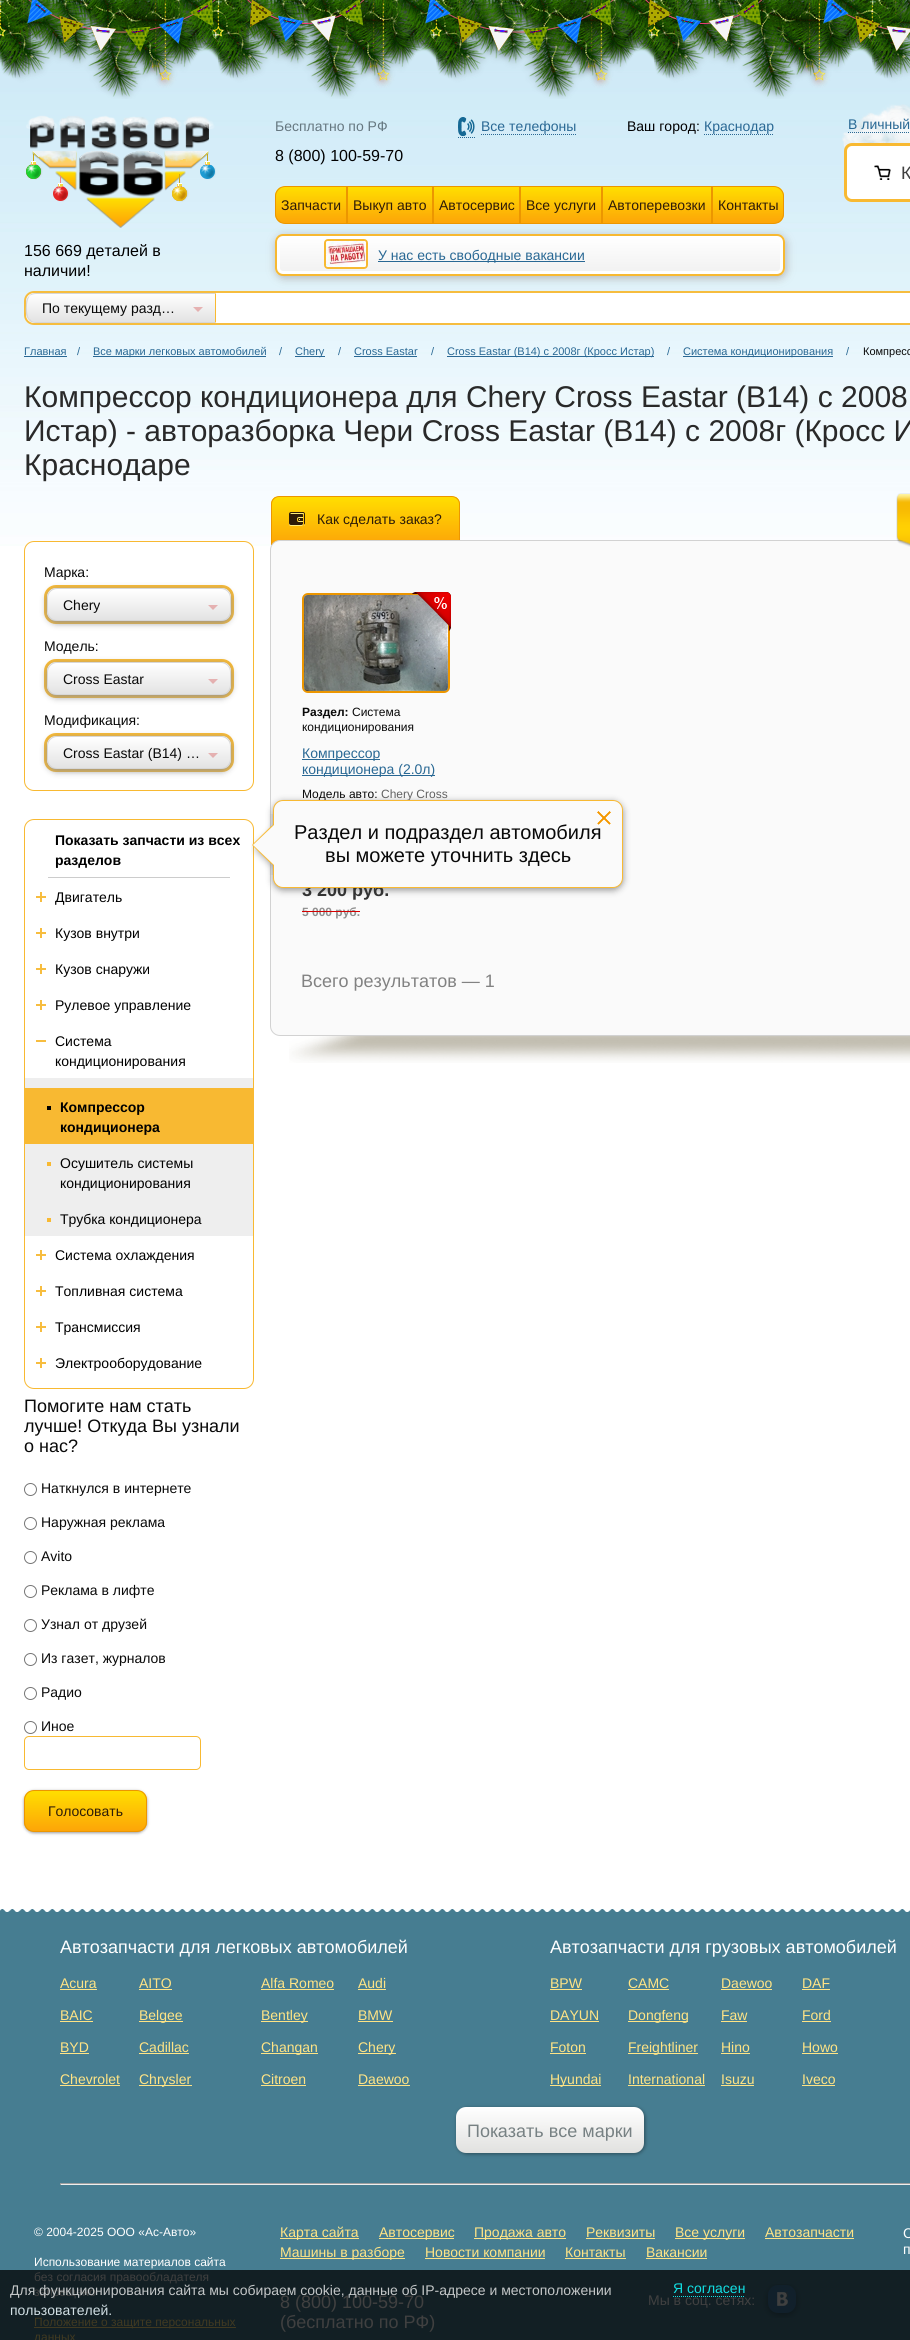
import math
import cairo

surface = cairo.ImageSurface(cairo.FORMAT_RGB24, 910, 2340)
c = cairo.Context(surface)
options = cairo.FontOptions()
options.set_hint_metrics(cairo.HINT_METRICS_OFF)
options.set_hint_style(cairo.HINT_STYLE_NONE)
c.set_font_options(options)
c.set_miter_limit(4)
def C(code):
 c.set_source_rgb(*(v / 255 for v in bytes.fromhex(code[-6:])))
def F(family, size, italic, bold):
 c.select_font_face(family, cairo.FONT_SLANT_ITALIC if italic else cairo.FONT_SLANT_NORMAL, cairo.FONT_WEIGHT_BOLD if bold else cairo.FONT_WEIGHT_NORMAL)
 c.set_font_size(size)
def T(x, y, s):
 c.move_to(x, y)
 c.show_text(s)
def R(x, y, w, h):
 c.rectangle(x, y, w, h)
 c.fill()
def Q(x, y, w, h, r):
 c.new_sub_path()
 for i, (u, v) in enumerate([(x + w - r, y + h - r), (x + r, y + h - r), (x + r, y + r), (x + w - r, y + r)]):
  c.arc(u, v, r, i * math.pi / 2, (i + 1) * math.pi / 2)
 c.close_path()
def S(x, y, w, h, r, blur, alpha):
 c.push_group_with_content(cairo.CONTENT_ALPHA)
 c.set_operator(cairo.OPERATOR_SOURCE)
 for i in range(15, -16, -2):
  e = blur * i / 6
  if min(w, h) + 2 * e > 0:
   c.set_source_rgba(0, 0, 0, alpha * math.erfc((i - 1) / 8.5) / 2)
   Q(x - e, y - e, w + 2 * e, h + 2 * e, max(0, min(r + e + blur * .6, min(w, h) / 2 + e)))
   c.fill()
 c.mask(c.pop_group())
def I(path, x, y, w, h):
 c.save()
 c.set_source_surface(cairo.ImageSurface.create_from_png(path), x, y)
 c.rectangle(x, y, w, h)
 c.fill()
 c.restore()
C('ffffff')
c.paint()
I('1.png',0,0,910,546)
I('2.png',0,0,910,99)
I('3.png',27,0,883,52)
I('5.png',30,121,179,107)
I('4.png',26,115,190,87)
F('Liberation Sans',16,0,0)
C('000000')
T(24,256,'156 669 деталей в')
T(24,276,'наличии!')
F('Liberation Sans',14,0,0)
C('657780')
T(275,131,'Бесплатно по РФ')
F('Liberation Sans',16,0,0)
C('000000')
T(275,161,'8 (800) 100-59-70')
c.new_path()
c.move_to(481,134.5)
c.line_to(576,134.5)
C('296894')
c.set_line_width(1)
c.set_dash([1,1])
c.stroke()
c.new_path()
c.move_to(458,137.5)
c.line_to(475,137.5)
c.stroke()
I('6.png',458,117,17,20)
F('Liberation Sans',14,0,0)
T(481,131,'Все телефоны')
C('000000')
T(627,131,'Ваш город:')
C('296894')
T(704,131,'Краснодар')
c.new_path()
c.move_to(704,134.5)
c.line_to(774,134.5)
c.stroke()
C('b6b6b6')
S(276,236,510,42,8,4.5,1)
c.save()
c.new_path()
c.move_to(285,186)
c.line_to(347,186)
c.line_to(347,224)
c.line_to(285,224)
c.curve_to(279.5,224,275,219.5,275,214)
c.line_to(275,196)
c.curve_to(275,190.5,279.5,186,285,186)
c.close_path()
c.clip()
gradient = cairo.LinearGradient(311,187,311,223)
gradient.add_color_stop_rgba(0,1,0.871,0,1)
gradient.add_color_stop_rgba(1,0.992,0.647,0.031,1)
c.set_source(gradient)
R(275,187,71,36)
c.restore()
c.new_path()
c.move_to(285,186.5)
c.line_to(346.5,186.5)
c.line_to(346.5,223.5)
c.line_to(285,223.5)
c.curve_to(280,223.5,275.5,219,275.5,214)
c.line_to(275.5,196)
c.curve_to(275.5,191,280,186.5,285,186.5)
c.close_path()
C('ec9600')
c.set_dash([])
c.stroke()
C('2e1c08')
T(281,210,'Запчасти')
gradient = cairo.LinearGradient(390,187,390,223)
gradient.add_color_stop_rgba(0,1,0.871,0,1)
gradient.add_color_stop_rgba(1,0.992,0.647,0.031,1)
c.set_source(gradient)
R(348,187,84,36)
c.rectangle(347.5,186.5,85,37)
C('ec9600')
c.stroke()
C('2e1c08')
T(353,210,'Выкуп авто')
gradient = cairo.LinearGradient(477,187,477,223)
gradient.add_color_stop_rgba(0,1,0.871,0,1)
gradient.add_color_stop_rgba(1,0.992,0.647,0.031,1)
c.set_source(gradient)
R(434,187,85,36)
c.rectangle(433.5,186.5,86,37)
C('ec9600')
c.stroke()
C('2e1c08')
T(439,210,'Автосервис')
gradient = cairo.LinearGradient(561,187,561,223)
gradient.add_color_stop_rgba(0,1,0.871,0,1)
gradient.add_color_stop_rgba(1,0.992,0.647,0.031,1)
c.set_source(gradient)
R(521,187,80,36)
c.rectangle(520.5,186.5,81,37)
C('ec9600')
c.stroke()
C('2e1c08')
T(526,210,'Все услуги')
gradient = cairo.LinearGradient(657,187,657,223)
gradient.add_color_stop_rgba(0,1,0.871,0,1)
gradient.add_color_stop_rgba(1,0.992,0.647,0.031,1)
c.set_source(gradient)
R(603,187,108,36)
c.rectangle(602.5,186.5,109,37)
C('ec9600')
c.stroke()
C('2e1c08')
T(608,210,'Автоперевозки')
c.save()
c.new_path()
c.move_to(712,186)
c.line_to(774,186)
c.curve_to(779.5,186,784,190.5,784,196)
c.line_to(784,214)
c.curve_to(784,219.5,779.5,224,774,224)
c.line_to(712,224)
c.close_path()
c.clip()
gradient = cairo.LinearGradient(748,187,748,223)
gradient.add_color_stop_rgba(0,1,0.871,0,1)
gradient.add_color_stop_rgba(1,0.992,0.647,0.031,1)
c.set_source(gradient)
R(713,187,71,36)
c.restore()
c.new_path()
c.move_to(712.5,186.5)
c.line_to(774,186.5)
c.curve_to(779,186.5,783.5,191,783.5,196)
c.line_to(783.5,214)
c.curve_to(783.5,219,779,223.5,774,223.5)
c.line_to(712.5,223.5)
c.close_path()
C('ec9600')
c.stroke()
C('2e1c08')
T(718,210,'Контакты')
c.save()
Q(275,234,510,42,8)
c.clip()
gradient = cairo.LinearGradient(530,236,530,274)
gradient.add_color_stop_rgba(0,1,1,1,1)
gradient.add_color_stop_rgba(1,0.945,0.945,0.945,1)
c.set_source(gradient)
R(275,236,510,38)
c.restore()
Q(278.5,237.5,503,35,4.5)
C('ffffff')
c.set_line_width(3)
c.stroke()
Q(276,235,508,40,7)
C('f7b932')
c.set_line_width(2)
c.stroke()
Q(325,240,42,28,3)
c.stroke()
I('7.png',326,241,40,26)
C('296894')
R(378,261,207,1)
T(378,260,'У нас есть свободные вакансии')
I('8.png',842,104,68,44)
T(848,129,'В личный')
c.new_path()
c.move_to(848,132.5)
c.line_to(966,132.5)
c.set_line_width(1)
c.set_dash([1,1])
c.stroke()
C('ffffff')
Q(845.5,144.5,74,56,6.5)
c.fill_preserve()
C('f8b932')
c.set_line_width(3)
c.set_dash([])
c.stroke()
I('9.png',874,165,17,15)
F('Liberation Sans',18,0,0)
C('404040')
T(901,179,'К')
C('ffffff')
Q(25,292,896,32,9)
c.fill_preserve()
C('f6bd3f')
c.set_line_width(2)
c.stroke()
c.save()
c.new_path()
c.move_to(36,293)
c.line_to(216,293)
c.line_to(216,323)
c.line_to(36,323)
c.curve_to(30.5,323,26,318.5,26,313)
c.line_to(26,303)
c.curve_to(26,297.5,30.5,293,36,293)
c.close_path()
c.clip()
gradient = cairo.LinearGradient(121,294,121,322)
gradient.add_color_stop_rgba(0,1,1,1,1)
gradient.add_color_stop_rgba(1,0.89,0.89,0.89,1)
c.set_source(gradient)
R(26,294,189,28)
c.restore()
C('d7d7d7')
c.new_path()
c.move_to(36,293)
c.curve_to(33,293,30,294,29,296)
c.curve_to(31,295,33,294,36,294)
c.line_to(215,294)
c.line_to(216,293)
c.close_path()
c.fill()
C('f8b932')
c.new_path()
c.move_to(216,293)
c.line_to(215,294)
c.line_to(215,322)
c.line_to(216,323)
c.close_path()
c.fill()
C('d7d7d7')
c.new_path()
c.move_to(216,323)
c.line_to(215,322)
c.line_to(34,322)
c.curve_to(32,321,31,321,30,319)
c.line_to(29,320)
c.curve_to(30,322,33,323,36,323)
c.close_path()
c.fill()
c.new_path()
c.move_to(26,303)
c.curve_to(26,308,24.5,316,29,320)
c.line_to(29.5,319.5)
c.curve_to(26,315.5,26,300.5,29.5,296.5)
c.line_to(29,296)
c.curve_to(27,297.5,26,300,26,303)
c.close_path()
c.fill()
F('Liberation Sans',14,0,0)
C('090909')
T(42,313,'По текущему разд…')
c.set_source_rgba(0.804,0.125,0.125,0.3)
c.new_path()
c.move_to(193,307)
c.line_to(203,307)
c.line_to(198,312)
c.close_path()
c.fill()
F('Liberation Sans',11,0,0)
C('296894')
T(24,355,'Главная')
R(24,356,43,1)
T(77,355,'/')
R(93,356,173,1)
T(93,355,'Все марки легковых автомобилей')
T(279,355,'/')
R(295,356,30,1)
T(295,355,'Chery')
T(338,355,'/')
T(354,355,'Cross Eastar')
R(354,356,63,1)
T(431,355,'/')
R(447,356,207,1)
T(447,355,'Cross Eastar (В14) с 2008г (Кросс Истар)')
T(667,355,'/')
R(683,356,150,1)
T(683,355,'Система кондиционирования')
T(846,355,'/')
C('090909')
T(863,355,'Компресс')
F('Liberation Sans',30,0,0)
C('292929')
T(24,407,'Компрессор кондиционера для Chery Cross Eastar (В14) с 2008')
T(24,441,'Истар) - авторазборка Чери Cross Eastar (В14) с 2008г (Кросс И')
T(24,475,'Краснодаре')
c.save()
c.new_path()
c.move_to(279,496)
c.line_to(452,496)
c.curve_to(456.5,496,460,499.5,460,504)
c.line_to(460,545)
c.line_to(271,545)
c.line_to(271,504)
c.curve_to(271,499.5,274.5,496,279,496)
c.close_path()
c.clip()
gradient = cairo.LinearGradient(366,497,366,544)
gradient.add_color_stop_rgba(0,1,0.871,0,1)
gradient.add_color_stop_rgba(1,0.992,0.647,0.031,1)
c.set_source(gradient)
R(271,497,189,47)
c.restore()
c.new_path()
c.move_to(279,496.5)
c.line_to(452,496.5)
c.curve_to(456,496.5,459.5,500,459.5,504)
c.line_to(459.5,544.5)
c.line_to(271.5,544.5)
c.line_to(271.5,504)
c.curve_to(271.5,500,275,496.5,279,496.5)
c.close_path()
C('ec9600')
c.set_line_width(1)
c.stroke()
I('10.png',289,512,16,14)
F('Liberation Sans',14,0,0)
C('2e1c08')
T(317,524,'Как сделать заказ?')
c.rectangle(899.5,496.5,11,43)
C('d2d2d2')
c.stroke()
C('fafafa')
Q(270.5,540.5,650,495,9.5)
c.fill_preserve()
C('d2d2d2')
c.stroke()
I('11.png',896,493,14,54)
C('ffffff')
Q(24.5,541.5,229,249,9.5)
c.fill_preserve()
C('f8b932')
c.stroke()
C('090909')
T(44,577,'Марка:')
Q(45.5,586.5,187,36,10.5)
C('f8b932')
c.set_line_width(3)
c.stroke()
C('929292')
S(47,590,184,33,10,3.5,1)
c.save()
Q(47,588,184,33,10)
c.clip()
gradient = cairo.LinearGradient(139,589,139,620)
gradient.add_color_stop_rgba(0,1,1,1,1)
gradient.add_color_stop_rgba(1,0.89,0.89,0.89,1)
c.set_source(gradient)
R(47,589,184,31)
c.restore()
Q(47.5,588.5,183,32,9.5)
C('d7d7d7')
c.set_line_width(1)
c.stroke()
C('090909')
T(63,610,'Chery')
c.set_source_rgba(0.804,0.125,0.125,0.3)
c.new_path()
c.move_to(208,605)
c.line_to(218,605)
c.line_to(213,610)
c.close_path()
c.fill()
C('090909')
T(44,651,'Модель:')
Q(45.5,660.5,187,36,10.5)
C('f8b932')
c.set_line_width(3)
c.stroke()
C('929292')
S(47,664,184,33,10,3.5,1)
c.save()
Q(47,662,184,33,10)
c.clip()
gradient = cairo.LinearGradient(139,663,139,694)
gradient.add_color_stop_rgba(0,1,1,1,1)
gradient.add_color_stop_rgba(1,0.89,0.89,0.89,1)
c.set_source(gradient)
R(47,663,184,31)
c.restore()
Q(47.5,662.5,183,32,9.5)
C('d7d7d7')
c.set_line_width(1)
c.stroke()
C('090909')
T(63,684,'Cross Eastar')
c.set_source_rgba(0.804,0.125,0.125,0.3)
c.new_path()
c.move_to(208,679)
c.line_to(218,679)
c.line_to(213,684)
c.close_path()
c.fill()
C('090909')
T(44,725,'Модификация:')
Q(45.5,734.5,187,36,10.5)
C('f8b932')
c.set_line_width(3)
c.stroke()
C('929292')
S(47,738,184,33,10,3.5,1)
c.save()
Q(47,736,184,33,10)
c.clip()
gradient = cairo.LinearGradient(139,737,139,768)
gradient.add_color_stop_rgba(0,1,1,1,1)
gradient.add_color_stop_rgba(1,0.89,0.89,0.89,1)
c.set_source(gradient)
R(47,737,184,31)
c.restore()
Q(47.5,736.5,183,32,9.5)
C('d7d7d7')
c.set_line_width(1)
c.stroke()
C('090909')
T(63,758,'Cross Eastar (В14) …')
c.set_source_rgba(0.804,0.125,0.125,0.3)
c.new_path()
c.move_to(208,753)
c.line_to(218,753)
c.line_to(213,758)
c.close_path()
c.fill()
Q(24.5,819.5,229,569,9.5)
C('f8b932')
c.stroke()
F('Liberation Sans',14,0,1)
C('000000')
T(55,845,'Показать запчасти из всех')
T(55,865,'разделов')
C('cccccc')
R(48,877,182,1)
I('12.png',36,892,10,10)
F('Liberation Sans',14,0,0)
C('000000')
T(55,902,'Двигатель')
I('12.png',36,928,10,10)
T(55,938,'Кузов внутри')
I('12.png',36,964,10,10)
T(55,974,'Кузов снаружи')
I('12.png',36,1000,10,10)
T(55,1010,'Рулевое управление')
C('f7bd3f')
R(36,1040,10,2)
C('000000')
T(55,1046,'Система')
T(55,1066,'кондиционирования')
C('eeeeee')
R(25,1078,228,158)
C('f8b932')
R(25,1088,228,56)
C('000000')
R(47,1106,4,4)
F('Liberation Sans',14,0,1)
T(60,1112,'Компрессор')
T(60,1132,'кондиционера')
C('f8b932')
R(47,1162,4,4)
F('Liberation Sans',14,0,0)
C('000000')
T(60,1168,'Осушитель системы')
T(60,1188,'кондиционирования')
C('f8b932')
R(47,1218,4,4)
C('000000')
T(60,1224,'Трубка кондиционера')
I('12.png',36,1250,10,10)
T(55,1260,'Система охлаждения')
I('12.png',36,1286,10,10)
T(55,1296,'Топливная система')
I('12.png',36,1322,10,10)
T(55,1332,'Трансмиссия')
I('12.png',36,1358,10,10)
T(55,1368,'Электрооборудование')
C('929292')
S(273,802,350,88,10,3.5,1)
F('Liberation Sans',12,0,0)
C('090909')
T(302,798,'Модель авто:')
C('626262')
T(381,798,'Chery Cross')
F('Liberation Sans',18,0,1)
C('333333')
T(302,896,'3 200 руб.')
C('fafafa')
Q(273.5,800.5,349,87,9.5)
c.fill_preserve()
C('f8b932')
c.stroke()
I('13.png',251,814,23,61)
F('Liberation Sans',20,0,0)
C('090909')
T(294,839,'Раздел и подраздел автомобиля')
I('14.png',597,811,14,14)
T(325,862,'вы можете уточнить здесь')
F('Liberation Sans',18,0,0)
T(24,1412,'Помогите нам стать')
T(24,1432,'лучше! Откуда Вы узнали')
T(24,1452,'о нас?')
c.new_path()
c.arc(30.5,1489.5,6,0,2 * math.pi)
C('767676')
c.stroke()
F('Liberation Sans',14,0,0)
C('090909')
T(41,1493,'Наткнулся в интернете')
c.new_path()
c.arc(30.5,1523.5,6,0,2 * math.pi)
C('767676')
c.stroke()
C('090909')
T(41,1527,'Наружная реклама')
c.new_path()
c.arc(30.5,1557.5,6,0,2 * math.pi)
C('767676')
c.stroke()
C('090909')
T(41,1561,'Avito')
c.new_path()
c.arc(30.5,1591.5,6,0,2 * math.pi)
C('767676')
c.stroke()
C('090909')
T(41,1595,'Реклама в лифте')
c.new_path()
c.arc(30.5,1625.5,6,0,2 * math.pi)
C('767676')
c.stroke()
C('090909')
T(41,1629,'Узнал от друзей')
c.new_path()
c.arc(30.5,1659.5,6,0,2 * math.pi)
C('767676')
c.stroke()
C('090909')
T(41,1663,'Из газет, журналов')
c.new_path()
c.arc(30.5,1693.5,6,0,2 * math.pi)
C('767676')
c.stroke()
C('090909')
T(41,1697,'Радио')
c.new_path()
c.arc(30.5,1727.5,6,0,2 * math.pi)
C('767676')
c.stroke()
C('090909')
T(41,1731,'Иное')
Q(24.5,1736.5,176,33,4.5)
C('f8b932')
c.stroke()
C('000000')
S(24,1791,123,42,10,1.5,.4)
c.save()
Q(24,1790,123,42,10)
c.clip()
gradient = cairo.LinearGradient(86,1791,86,1831)
gradient.add_color_stop_rgba(0,1,0.871,0,1)
gradient.add_color_stop_rgba(1,0.992,0.647,0.031,1)
c.set_source(gradient)
R(24,1791,123,40)
c.restore()
Q(24.5,1790.5,122,41,9.5)
C('ec9600')
c.stroke()
C('2e1c08')
T(48,1816,'Голосовать')
Q(303,594,146,98,5)
C('ec9600')
c.set_line_width(2)
c.stroke()
I('16.png',304,595,144,96)
I('15.png',412,592,39,39)
F('Liberation Sans',12,0,1)
C('090909')
T(302,716,'Раздел:')
F('Liberation Sans',12,0,0)
T(352,716,'Система')
T(302,731,'кондиционирования')
C('296894')
R(302,759,78,1)
F('Liberation Sans',14,0,0)
T(302,758,'Компрессор')
R(302,775,133,1)
T(302,774,'кондиционера (2.0л)')
F('Liberation Sans',12,0,1)
C('909090')
T(302,916,'5 000 руб.')
C('d40000')
R(302,911,58,1)
F('Liberation Sans',18,0,0)
C('828282')
T(301,987,'Всего результатов — 1')
I('17.png',289,1036,621,27)
C('467d91')
R(0,1912,910,358)
C('121f24')
R(0,2270,910,70)
I('18.png',0,1909,910,3)
C('ffffff')
T(60,1953,'Автозапчасти для легковых автомобилей')
F('Liberation Sans',14,0,0)
C('ffe485')
T(60,1988,'Acura')
R(60,1989,37,1)
T(139,1988,'AITO')
R(139,1989,33,1)
T(261,1988,'Alfa Romeo')
R(261,1989,73,1)
T(358,1988,'Audi')
R(358,1989,28,1)
T(60,2020,'BAIC')
R(60,2021,33,1)
R(139,2021,44,1)
T(139,2020,'Belgee')
R(261,2021,47,1)
T(261,2020,'Bentley')
T(358,2020,'BMW')
R(358,2021,35,1)
T(60,2052,'BYD')
R(60,2053,29,1)
T(139,2052,'Cadillac')
R(139,2053,50,1)
R(261,2053,57,1)
T(261,2052,'Changan')
R(358,2053,38,1)
T(358,2052,'Chery')
T(60,2084,'Chevrolet')
R(60,2085,60,1)
R(139,2085,53,1)
T(139,2084,'Chrysler')
T(261,2084,'Citroen')
R(261,2085,45,1)
T(358,2084,'Daewoo')
R(358,2085,52,1)
F('Liberation Sans',18,0,0)
C('ffffff')
T(550,1953,'Автозапчасти для грузовых автомобилей')
F('Liberation Sans',14,0,0)
C('ffe485')
T(550,1988,'BPW')
R(550,1989,32,1)
T(628,1988,'CAMC')
R(628,1989,41,1)
T(721,1988,'Daewoo')
R(721,1989,51,1)
T(802,1988,'DAF')
R(802,1989,28,1)
T(550,2020,'DAYUN')
R(550,2021,49,1)
R(628,2021,60,1)
T(628,2020,'Dongfeng')
T(721,2020,'Faw')
R(721,2021,26,1)
T(802,2020,'Ford')
R(802,2021,29,1)
T(550,2052,'Foton')
R(550,2053,36,1)
R(628,2053,70,1)
T(628,2052,'Freightliner')
T(721,2052,'Hino')
R(721,2053,29,1)
T(802,2052,'Howo')
R(802,2053,36,1)
R(550,2085,51,1)
T(550,2084,'Hyundai')
T(628,2084,'International')
R(628,2085,77,1)
T(721,2084,'Isuzu')
R(721,2085,33,1)
T(802,2084,'Iveco')
R(802,2085,33,1)
C('000000')
S(457,2108,188,46,10,2,.4)
gradient = cairo.LinearGradient(550,2107,550,2153)
gradient.add_color_stop_rgba(0,1,1,1,1)
gradient.add_color_stop_rgba(1,0.882,0.882,0.875,1)
c.set_source(gradient)
Q(456,2107,188,46,10)
c.fill()
F('Liberation Sans',18,0,0)
C('778183')
T(467,2137,'Показать все марки')
C('9f9f9f')
R(60,2183,850,1)
C('eeeeee')
R(60,2184,850,1)
C('9f9f9f')
R(60,2183,1,2)
F('Liberation Sans',12,0,0)
C('ffffff')
T(34,2236,'© 2004-2025 ООО «Ас-Авто»')
T(34,2266,'Использование материалов сайта')
C('404040')
T(34,2281,'без согласия правообладателя')
T(34,2296,'запрещено')
C('403921')
R(34,2327,202,1)
T(34,2326,'Положение о защите персональных')
T(34,2341,'данных')
C('ffe485')
R(280,2238,79,1)
F('Liberation Sans',14,0,0)
T(280,2237,'Карта сайта')
R(379,2238,75,1)
T(379,2237,'Автосервис')
R(474,2238,92,1)
T(474,2237,'Продажа авто')
T(586,2237,'Реквизиты')
R(586,2238,69,1)
R(675,2238,70,1)
T(675,2237,'Все услуги')
T(765,2237,'Автозапчасти')
R(765,2238,89,1)
R(280,2258,125,1)
T(280,2257,'Машины в разборе')
T(425,2257,'Новости компании')
R(425,2258,120,1)
T(565,2257,'Контакты')
R(565,2258,61,1)
T(646,2257,'Вакансии')
R(646,2258,61,1)
C('ffffff')
T(903,2238,'С')
T(903,2254,'п')
F('Liberation Sans',18,0,0)
C('404040')
T(280,2308,'8 (800) 100-59-70')
T(280,2328,'(бесплатно по РФ)')
F('Liberation Sans',14,0,0)
T(648,2305,'Мы в соц. сетях:')
c.save()
c.rectangle(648,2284,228,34)
c.clip()
C('000000')
S(768,2287,28,28,10,3.5,.3)
c.restore()
C('11202b')
Q(768,2285,28,28,10)
c.fill()
I('19.png',777,2292,11,14)
C('c4c7c8')
T(10,2295,'Для функционирования сайта мы собираем cookie, данные об IP-адресе и местоположении')
C('d1dfe4')
T(10,2315,'пользователей.')
c.new_path()
c.move_to(673,2296.5)
c.line_to(745,2296.5)
C('12dfe4')
c.set_line_width(1)
c.set_dash([1,1])
c.stroke()
T(673,2293,'Я согласен')
surface.write_to_png('o.png')
